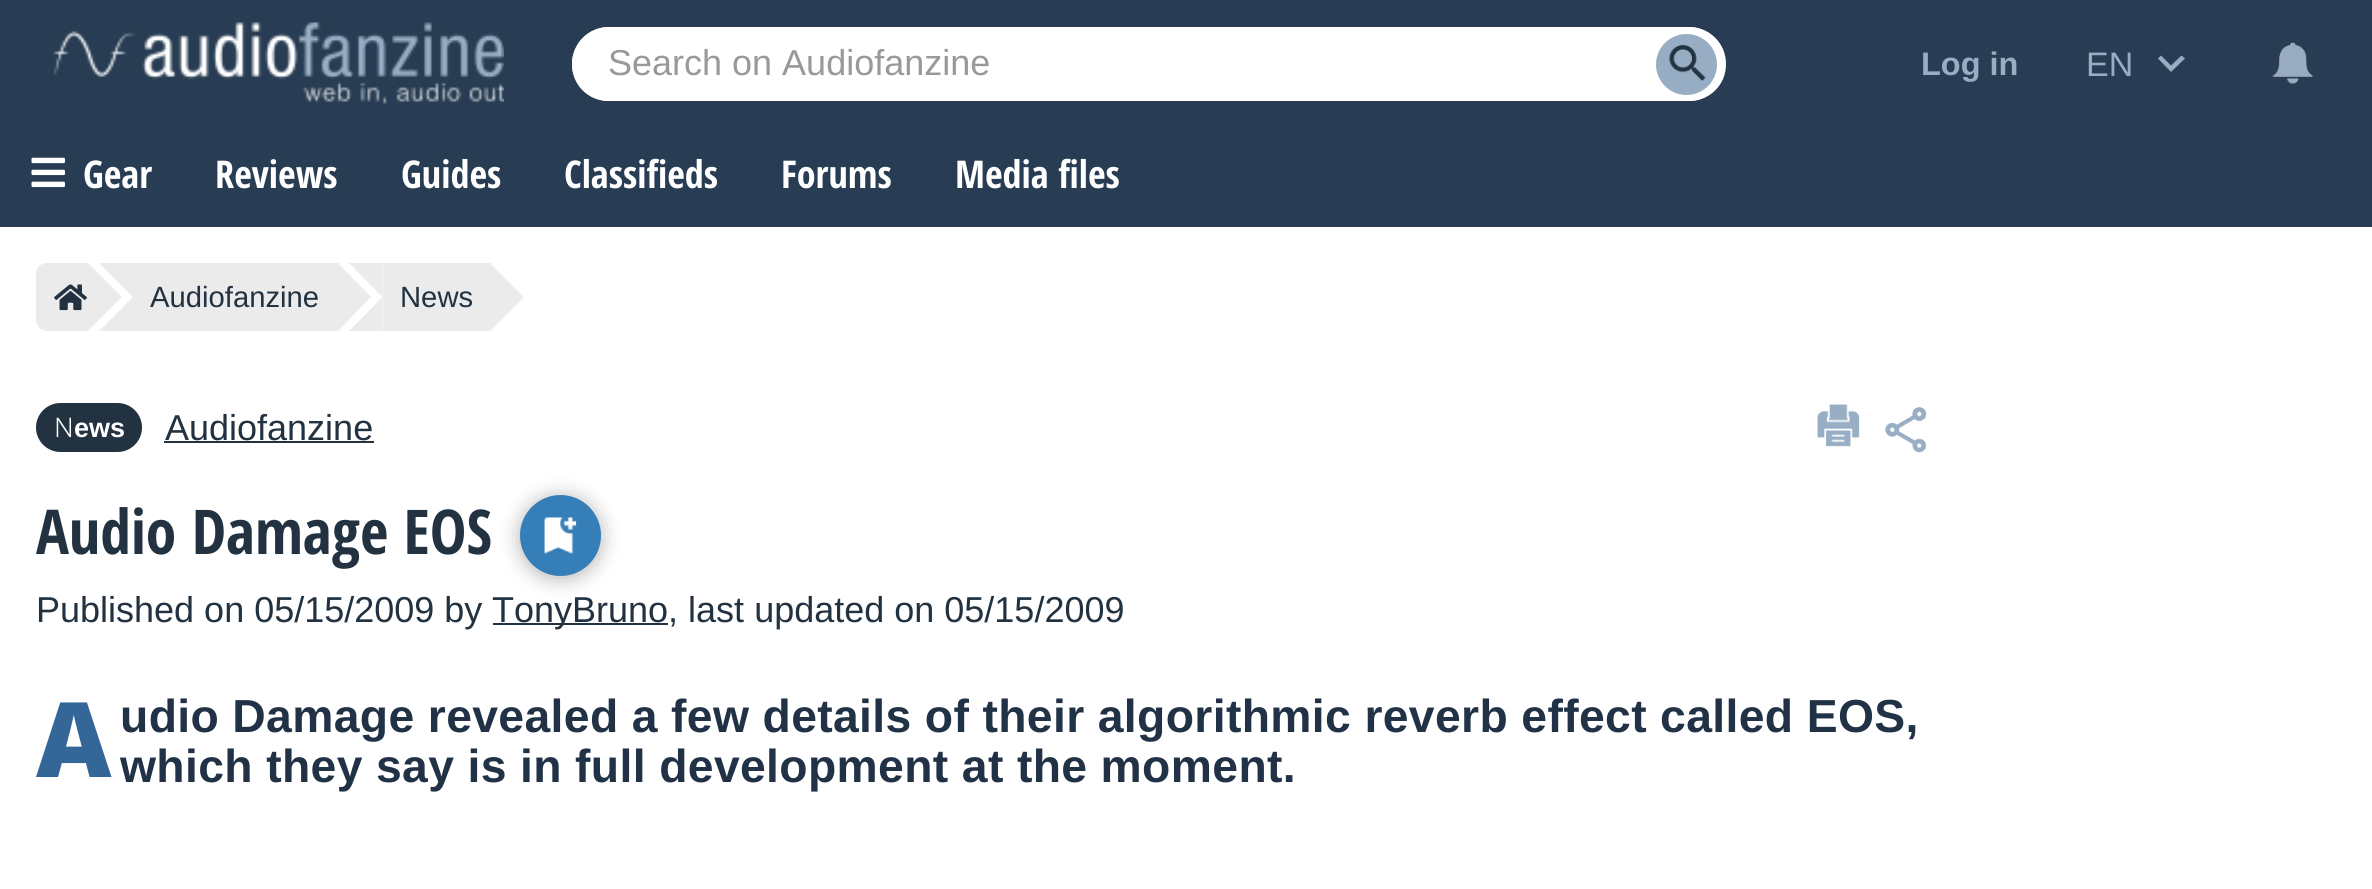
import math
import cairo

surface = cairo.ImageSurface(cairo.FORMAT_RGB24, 2372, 889)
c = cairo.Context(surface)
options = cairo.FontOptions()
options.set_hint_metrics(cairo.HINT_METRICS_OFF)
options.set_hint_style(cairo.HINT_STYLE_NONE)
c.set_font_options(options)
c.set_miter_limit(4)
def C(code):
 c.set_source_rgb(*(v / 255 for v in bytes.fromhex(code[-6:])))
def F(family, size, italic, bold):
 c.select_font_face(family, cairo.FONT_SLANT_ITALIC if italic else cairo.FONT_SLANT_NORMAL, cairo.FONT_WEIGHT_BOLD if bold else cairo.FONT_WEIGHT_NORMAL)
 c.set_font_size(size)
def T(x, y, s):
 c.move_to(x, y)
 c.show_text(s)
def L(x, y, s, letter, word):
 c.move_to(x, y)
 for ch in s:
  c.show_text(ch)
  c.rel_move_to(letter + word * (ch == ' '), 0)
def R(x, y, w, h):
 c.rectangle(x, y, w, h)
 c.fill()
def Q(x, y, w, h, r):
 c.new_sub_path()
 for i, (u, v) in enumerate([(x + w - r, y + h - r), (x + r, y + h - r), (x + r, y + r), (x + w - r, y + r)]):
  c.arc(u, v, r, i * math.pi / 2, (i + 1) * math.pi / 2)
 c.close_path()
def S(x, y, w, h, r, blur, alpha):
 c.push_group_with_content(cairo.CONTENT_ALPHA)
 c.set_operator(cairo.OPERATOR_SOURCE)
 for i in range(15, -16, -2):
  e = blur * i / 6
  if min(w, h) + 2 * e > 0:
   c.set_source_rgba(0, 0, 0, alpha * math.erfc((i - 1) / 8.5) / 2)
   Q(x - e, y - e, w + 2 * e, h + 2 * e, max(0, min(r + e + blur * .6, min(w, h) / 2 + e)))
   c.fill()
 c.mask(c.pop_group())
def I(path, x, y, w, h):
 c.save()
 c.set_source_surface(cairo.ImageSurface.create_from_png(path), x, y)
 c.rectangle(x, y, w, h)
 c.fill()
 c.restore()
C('ffffff')
c.paint()
C('283d53')
R(0,0,2372,227)
I('1.png',54,22,450,82)
C('ffffff')
Q(572,27,1154,74,37)
c.fill()
c.set_fill_rule(cairo.FILL_RULE_EVEN_ODD)
c.new_path()
c.move_to(609,27)
c.line_to(1689,27)
c.curve_to(1709,27,1726,44,1726,64)
c.curve_to(1726,85,1709,101,1689,101)
c.line_to(609,101)
c.curve_to(588,101,572,85,572,64)
c.curve_to(572,44,588,27,609,27)
c.close_path()
c.move_to(609,29)
c.line_to(1689,29)
c.curve_to(1709,29,1726,45,1726,64)
c.curve_to(1726,83,1709,99,1689,99)
c.line_to(609,99)
c.curve_to(589,99,574,83,574,64)
c.curve_to(574,45,589,29,609,29)
c.close_path()
c.fill()
F('Liberation Sans',36,0,0)
C('999999')
T(608,75,'Search on Audiofanzine')
C('97adc4')
c.new_path()
c.arc(1686.5,64.5,29.5,0,2 * math.pi)
c.fill_preserve()
c.stroke()
I('2.png',1669,45,37,36)
F('Liberation Sans',32.5,0,1)
T(1921,75,'Log in')
c.set_fill_rule(cairo.FILL_RULE_WINDING)
c.new_path()
c.move_to(2181.5,55.5)
c.line_to(2171,65.5)
c.line_to(2161,55.5)
c.line_to(2158,58.5)
c.line_to(2171,72)
c.line_to(2185,58.5)
c.close_path()
c.fill()
F('Liberation Sans',34,0,0)
T(2086,76,'EN')
I('3.png',2272,42,41,42)
I('4.png',31,157,34,31)
F('Open Sans Condensed',38.25,0,1)
C('ffffff')
T(83,188,'Gear')
T(215,188,'Reviews')
T(401,188,'Guides')
T(564,188,'Classifieds')
T(781,188,'Forums')
T(955,188,'Media files')
C('ebebec')
c.new_path()
c.move_to(47,263)
c.line_to(88,263)
c.line_to(88,331)
c.line_to(47,331)
c.curve_to(41,331,36,326,36,320)
c.line_to(36,274)
c.curve_to(36,268,41,263,47,263)
c.close_path()
c.fill()
I('5.png',54,284,33,27)
c.new_path()
c.move_to(88,331)
c.line_to(88,263)
c.line_to(122,297)
c.close_path()
c.fill()
R(133,263,205,68)
c.new_path()
c.move_to(99,263)
c.line_to(133,263)
c.line_to(133,297)
c.close_path()
c.fill()
c.new_path()
c.move_to(133,331)
c.line_to(99,331)
c.line_to(133,297)
c.close_path()
c.fill()
F('Liberation Sans',29.25,0,0)
C('223240')
T(150,307,'Audiofanzine')
C('ebebec')
c.new_path()
c.move_to(338,331)
c.line_to(338,263)
c.line_to(371,297)
c.close_path()
c.fill()
R(383,263,108,68)
c.new_path()
c.move_to(349,263)
c.line_to(382.5,263)
c.line_to(382.5,297)
c.close_path()
c.fill()
c.new_path()
c.move_to(382.5,331)
c.line_to(349,331)
c.line_to(382.5,297)
c.close_path()
c.fill()
C('223240')
T(400,307,'News')
C('ebebec')
c.new_path()
c.move_to(490,331)
c.line_to(490,263)
c.line_to(524,297)
c.close_path()
c.fill()
C('223240')
Q(36,403,106,49,24.5)
c.fill()
F('Noto Sans Light',27,0,0)
C('ffffff')
T(54,437,'N')
F('Liberation Sans',27,0,1)
T(74,437,'ews')
F('Liberation Sans',36,0,0)
C('223240')
T(165,440,'Audiofanzine')
R(164,441,210,2)
I('6.png',1817,404,43,43)
I('7.png',1885,407,42,46)
F('Open Sans Condensed',61.75,0,1)
T(36,554,'Audio Damage EOS')
C('000000')
S(520,497,81,81,40.5,10,.3)
C('367eb8')
c.arc(560.5,535.5,40.5,0,2 * math.pi)
c.fill()
I('8.png',544,517,33,37)
F('Liberation Sans',36,0,0)
C('223240')
T(36,622,'Published on 05/15/2009 by')
R(493,623,175,2)
T(492,622,'TonyBruno, last updated on 05/15/2009')
F('Noto Sans Black',104,0,0)
C('346697')
L(36,777,'A',.35,0)
F('Liberation Sans',46.3,0,1)
C('213146')
L(120,732,'udio Damage revealed a few details of their algorithmic reverb effect called EOS,',.35,0)
L(120,782,'which they say is in full development at the moment.',.35,0)
surface.write_to_png('o.png')
